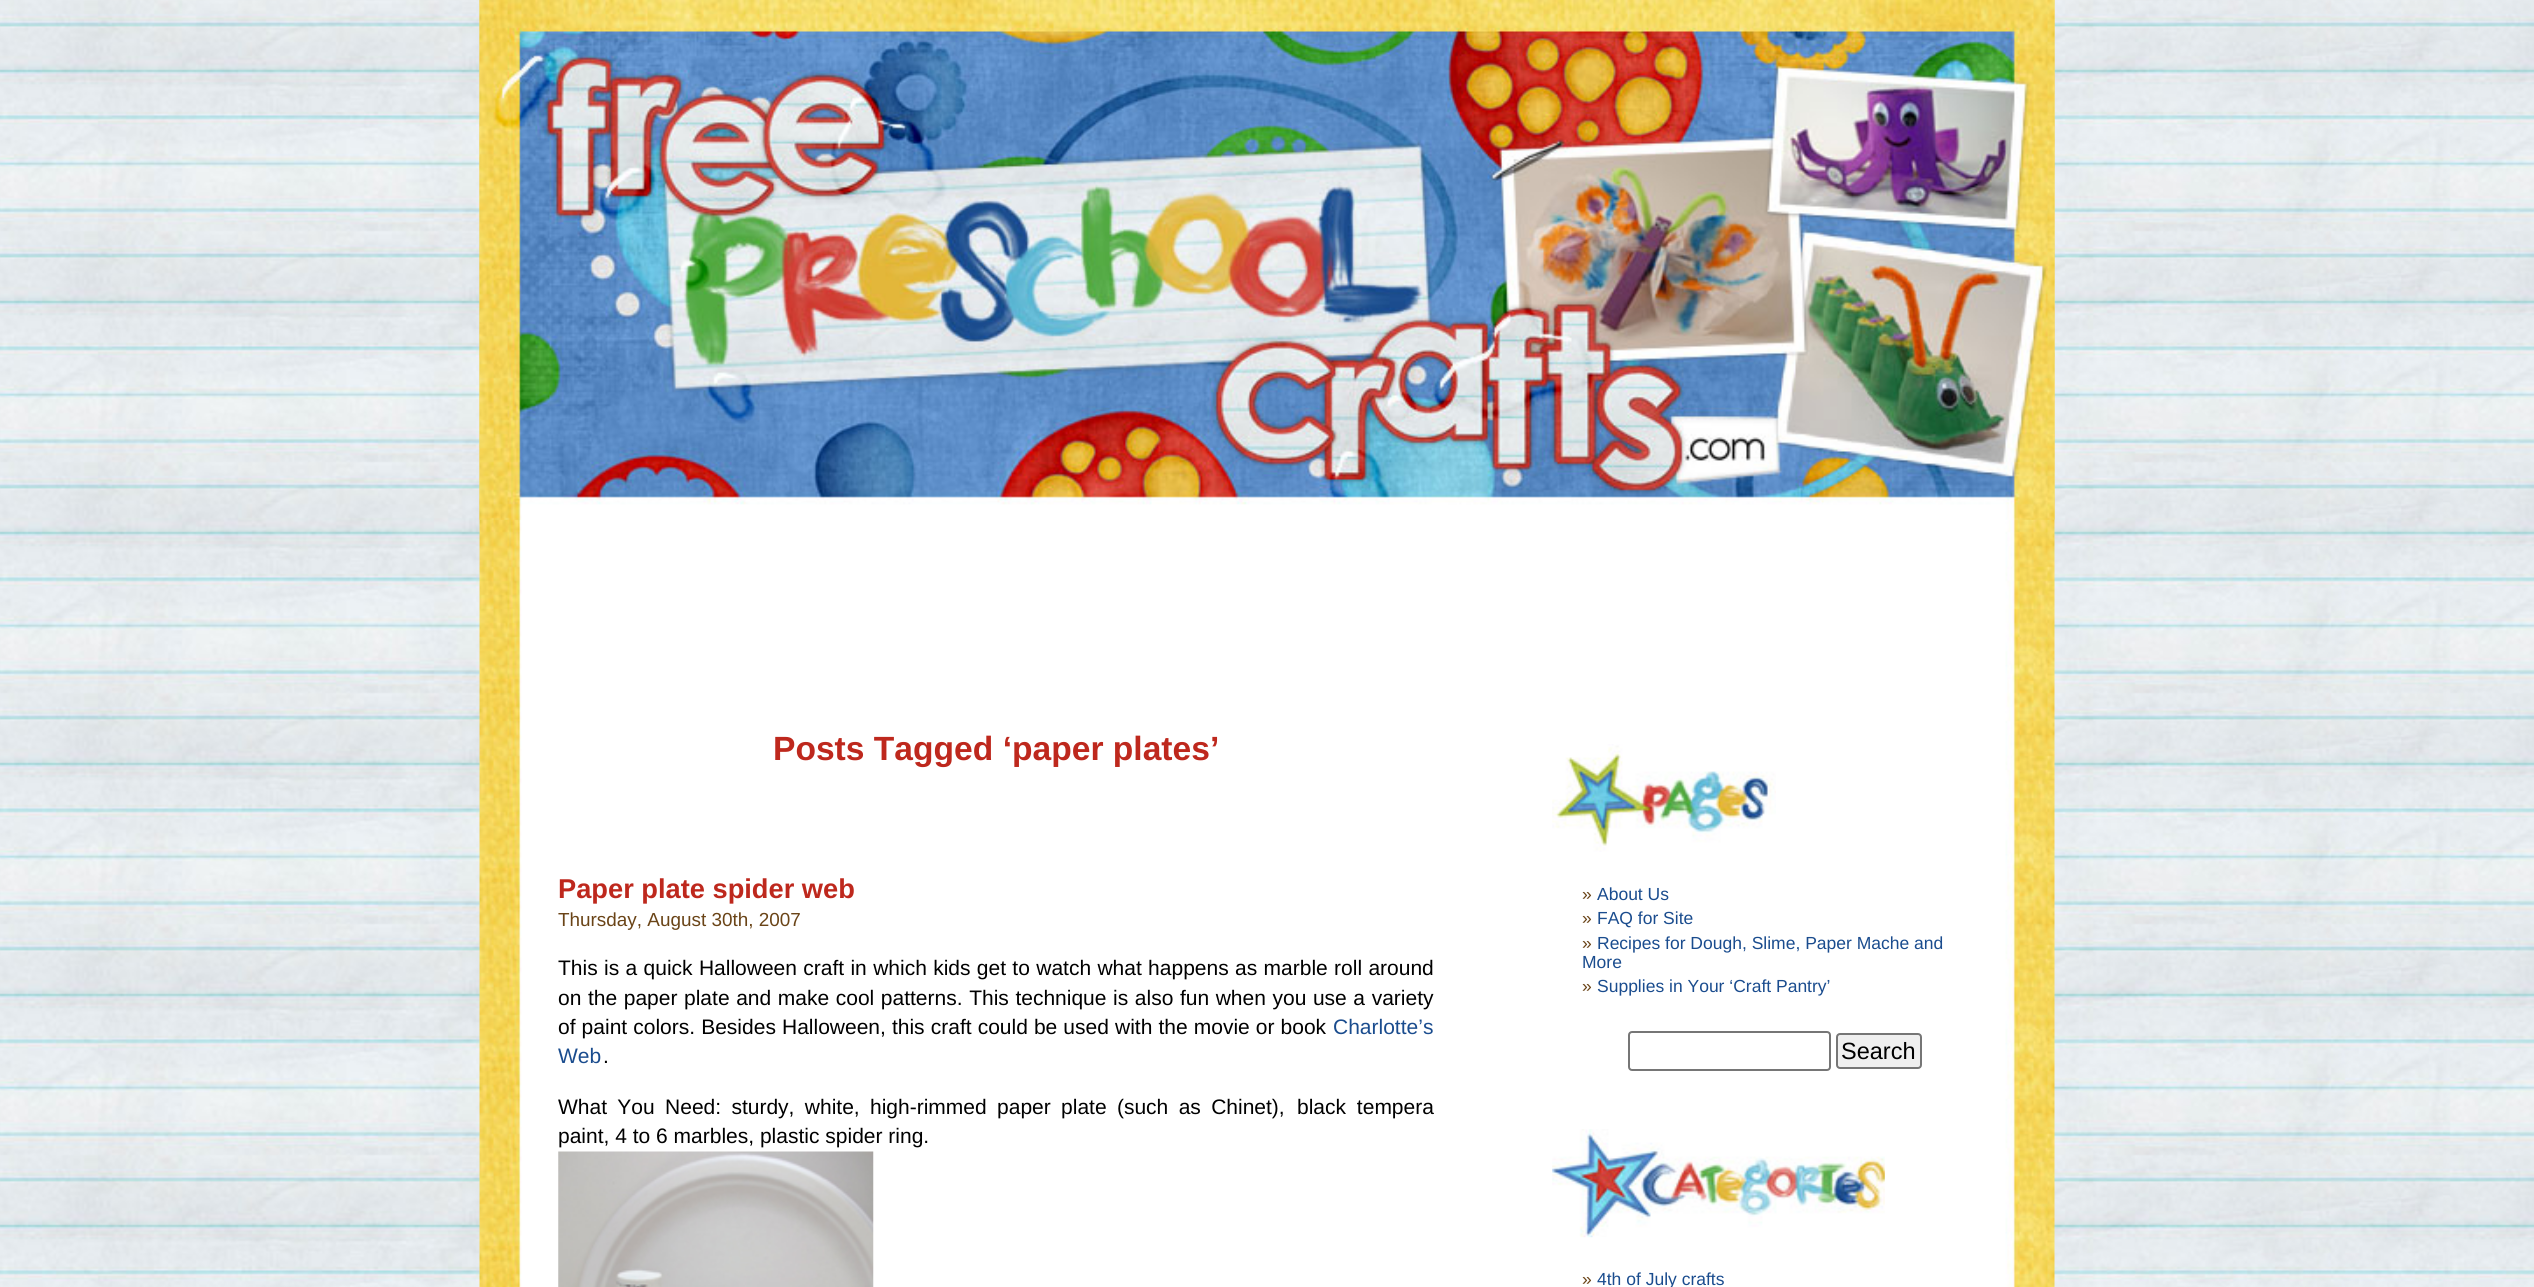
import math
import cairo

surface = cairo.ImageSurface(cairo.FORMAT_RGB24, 2534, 1287)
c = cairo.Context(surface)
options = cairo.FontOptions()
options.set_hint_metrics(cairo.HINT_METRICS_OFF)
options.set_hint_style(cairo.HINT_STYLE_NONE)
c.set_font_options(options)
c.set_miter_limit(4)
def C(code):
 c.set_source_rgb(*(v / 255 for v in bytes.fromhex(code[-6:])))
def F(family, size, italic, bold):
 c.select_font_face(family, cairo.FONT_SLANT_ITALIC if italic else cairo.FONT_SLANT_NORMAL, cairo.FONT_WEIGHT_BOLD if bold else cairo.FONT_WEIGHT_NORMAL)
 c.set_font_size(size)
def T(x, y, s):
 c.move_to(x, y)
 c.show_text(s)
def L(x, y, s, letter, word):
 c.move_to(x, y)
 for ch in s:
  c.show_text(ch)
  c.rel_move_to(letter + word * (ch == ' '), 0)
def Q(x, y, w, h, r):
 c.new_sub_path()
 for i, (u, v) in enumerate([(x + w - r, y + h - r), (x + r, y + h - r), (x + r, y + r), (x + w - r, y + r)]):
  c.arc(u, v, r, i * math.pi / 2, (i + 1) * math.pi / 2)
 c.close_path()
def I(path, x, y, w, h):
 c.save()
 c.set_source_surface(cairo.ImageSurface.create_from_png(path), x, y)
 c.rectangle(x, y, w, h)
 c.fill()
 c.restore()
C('ffffff')
c.paint()
I('1.png',0,0,2534,1287)
I('2.png',479,0,1576,1287)
I('3.png',479,0,1576,520)
F('Liberation Sans',33.6,0,1)
C('be281d')
T(773,760,'Posts Tagged ‘paper plates’')
F('Liberation Sans',27.25,0,1)
T(558,898,'Paper plate spider web')
F('Liberation Sans',18.9,0,0)
C('6a4417')
T(558,926,'Thursday, August 30th, 2007')
F('Liberation Sans',21,0,0)
C('000000')
L(558,975,'This is a quick Halloween craft in which kids get to watch what happens as marble roll around',0,.5)
L(558,1005,'on the paper plate and make cool patterns. This technique is also fun when you use a variety',0,.75)
L(558,1034,'of paint colors. Besides Halloween, this craft could be used with the movie or book',0,.25)
C('1a4c8e')
T(1333,1034,'Charlotte’s')
T(558,1063,'Web')
C('000000')
T(603,1063,'.')
L(558,1114,'What You Need: sturdy, white, high-rimmed paper plate (such as Chinet),',0,4.5)
L(1297,1114,'black tempera',0,5)
T(558,1143,'paint, 4 to 6 marbles, plastic spider ring.')
I('4.png',558,1151,316,136)
I('5.png',1552,744,224,108)
F('Liberation Sans',17.5,0,0)
C('6a4417')
T(1582,900,'»')
C('1a4c8e')
T(1597,900,'About Us')
C('6a4417')
T(1582,924,'»')
C('1a4c8e')
T(1597,924,'FAQ for Site')
C('6a4417')
T(1582,949,'»')
C('1a4c8e')
T(1597,949,'Recipes for Dough, Slime, Paper Mache and')
T(1582,968,'More')
C('6a4417')
T(1582,992,'»')
C('1a4c8e')
T(1597,992,'Supplies in Your ‘Craft Pantry’')
Q(1629,1032,201,38,3)
C('767676')
c.stroke()
C('efefef')
Q(1837,1034,84,34,3)
c.fill_preserve()
C('767676')
c.stroke()
F('Liberation Sans',23.5,0,0)
C('000000')
T(1841,1059,'Search')
I('6.png',1552,1129,333,109)
F('Liberation Sans',17.5,0,0)
C('6a4417')
T(1582,1285,'»')
C('1a4c8e')
T(1597,1285,'4th of July crafts')
surface.write_to_png('o.png')
